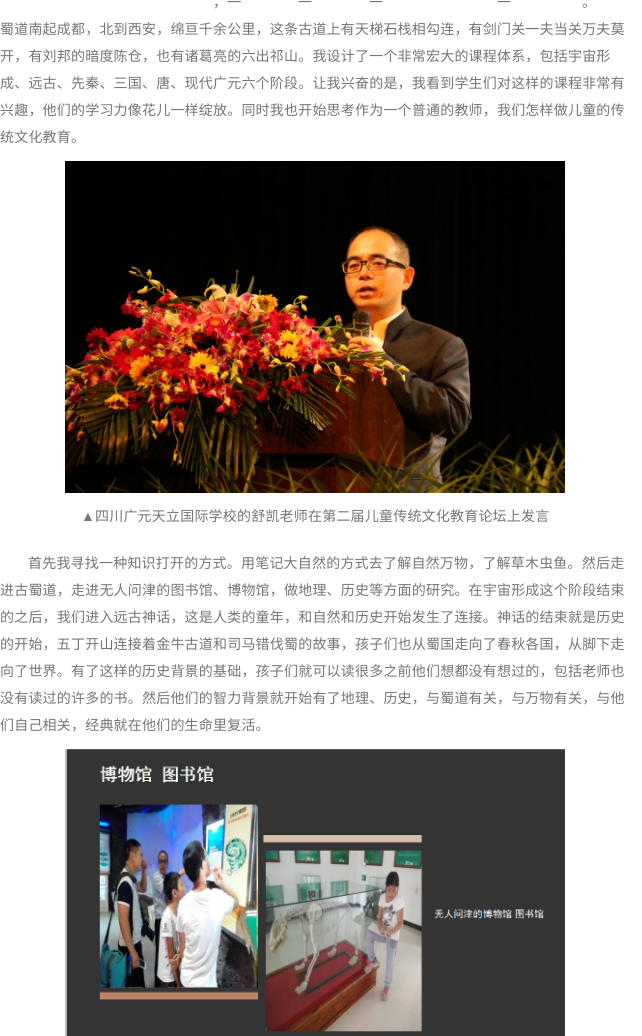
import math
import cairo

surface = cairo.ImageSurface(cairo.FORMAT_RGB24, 642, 1036)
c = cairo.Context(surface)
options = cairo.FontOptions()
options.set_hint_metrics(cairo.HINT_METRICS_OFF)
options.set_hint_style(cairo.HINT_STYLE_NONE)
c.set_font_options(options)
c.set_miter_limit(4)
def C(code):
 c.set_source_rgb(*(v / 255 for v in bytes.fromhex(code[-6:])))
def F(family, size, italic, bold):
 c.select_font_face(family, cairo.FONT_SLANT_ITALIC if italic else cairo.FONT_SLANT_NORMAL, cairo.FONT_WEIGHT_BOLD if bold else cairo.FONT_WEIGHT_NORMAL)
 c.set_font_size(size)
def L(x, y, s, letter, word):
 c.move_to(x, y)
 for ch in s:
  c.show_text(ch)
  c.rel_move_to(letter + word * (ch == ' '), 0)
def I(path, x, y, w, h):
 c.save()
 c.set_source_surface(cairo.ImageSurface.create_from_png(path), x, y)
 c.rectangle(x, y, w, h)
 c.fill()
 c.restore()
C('ffffff')
c.paint()
F('Noto Sans CJK SC',14,0,0)
C('757575')
L(213,7,'，一',.2,0)
L(298,7,'一',.2,0)
L(369,7,'一',.2,0)
L(497,7,'一',.2,0)
L(582,7,'。',.2,0)
L(0,34,'蜀道南起成都，北到西安，绵亘千余公里，这条古道上有天梯石栈相勾连，有剑门关一夫当关万夫莫',.2,0)
L(0,61,'开，有刘邦的暗度陈仓，也有诸葛亮的六出祁山。我设计了一个非常宏大的课程体系，包括宇宙形',.2,0)
L(0,88,'成、远古、先秦、三国、唐、现代广元六个阶段。让我兴奋的是，我看到学生们对这样的课程非常有',.2,0)
L(0,115,'兴趣，他们的学习力像花儿一样绽放。同时我也开始思考作为一个普通的教师，我们怎样做儿童的传',.2,0)
L(0,142,'统文化教育。',.2,0)
I('1.png',65,161,500,332)
F('Liberation Sans',14,0,0)
L(81,521,'▲',.2,0)
F('Noto Sans CJK SC',14,0,0)
L(95,521,'四川广元天立国际学校的舒凯老师在第二届儿童传统文化教育论坛上发言',.2,0)
L(28,568,'首先我寻找一种知识打开的方式。用笔记大自然的方式去了解自然万物，了解草木虫鱼。然后走',.2,0)
L(0,595,'进古蜀道，走进无人问津的图书馆、博物馆，做地理、历史等方面的研究。在宇宙形成这个阶段结束',.2,0)
L(0,622,'的之后，我们进入远古神话，这是人类的童年，和自然和历史开始发生了连接。神话的结束就是历史',.2,0)
L(0,649,'的开始，五丁开山连接着金牛古道和司马错伐蜀的故事，孩子们也从蜀国走向了春秋各国，从脚下走',.2,0)
L(0,676,'向了世界。有了这样的历史背景的基础，孩子们就可以读很多之前他们想都没有想过的，包括老师也',.2,0)
L(0,703,'没有读过的许多的书。然后他们的智力背景就开始有了地理、历史，与蜀道有关，与万物有关，与他',.2,0)
L(0,730,'们自己相关，经典就在他们的生命里复活。',.2,0)
I('2.png',65,749,500,287)
surface.write_to_png('o.png')
